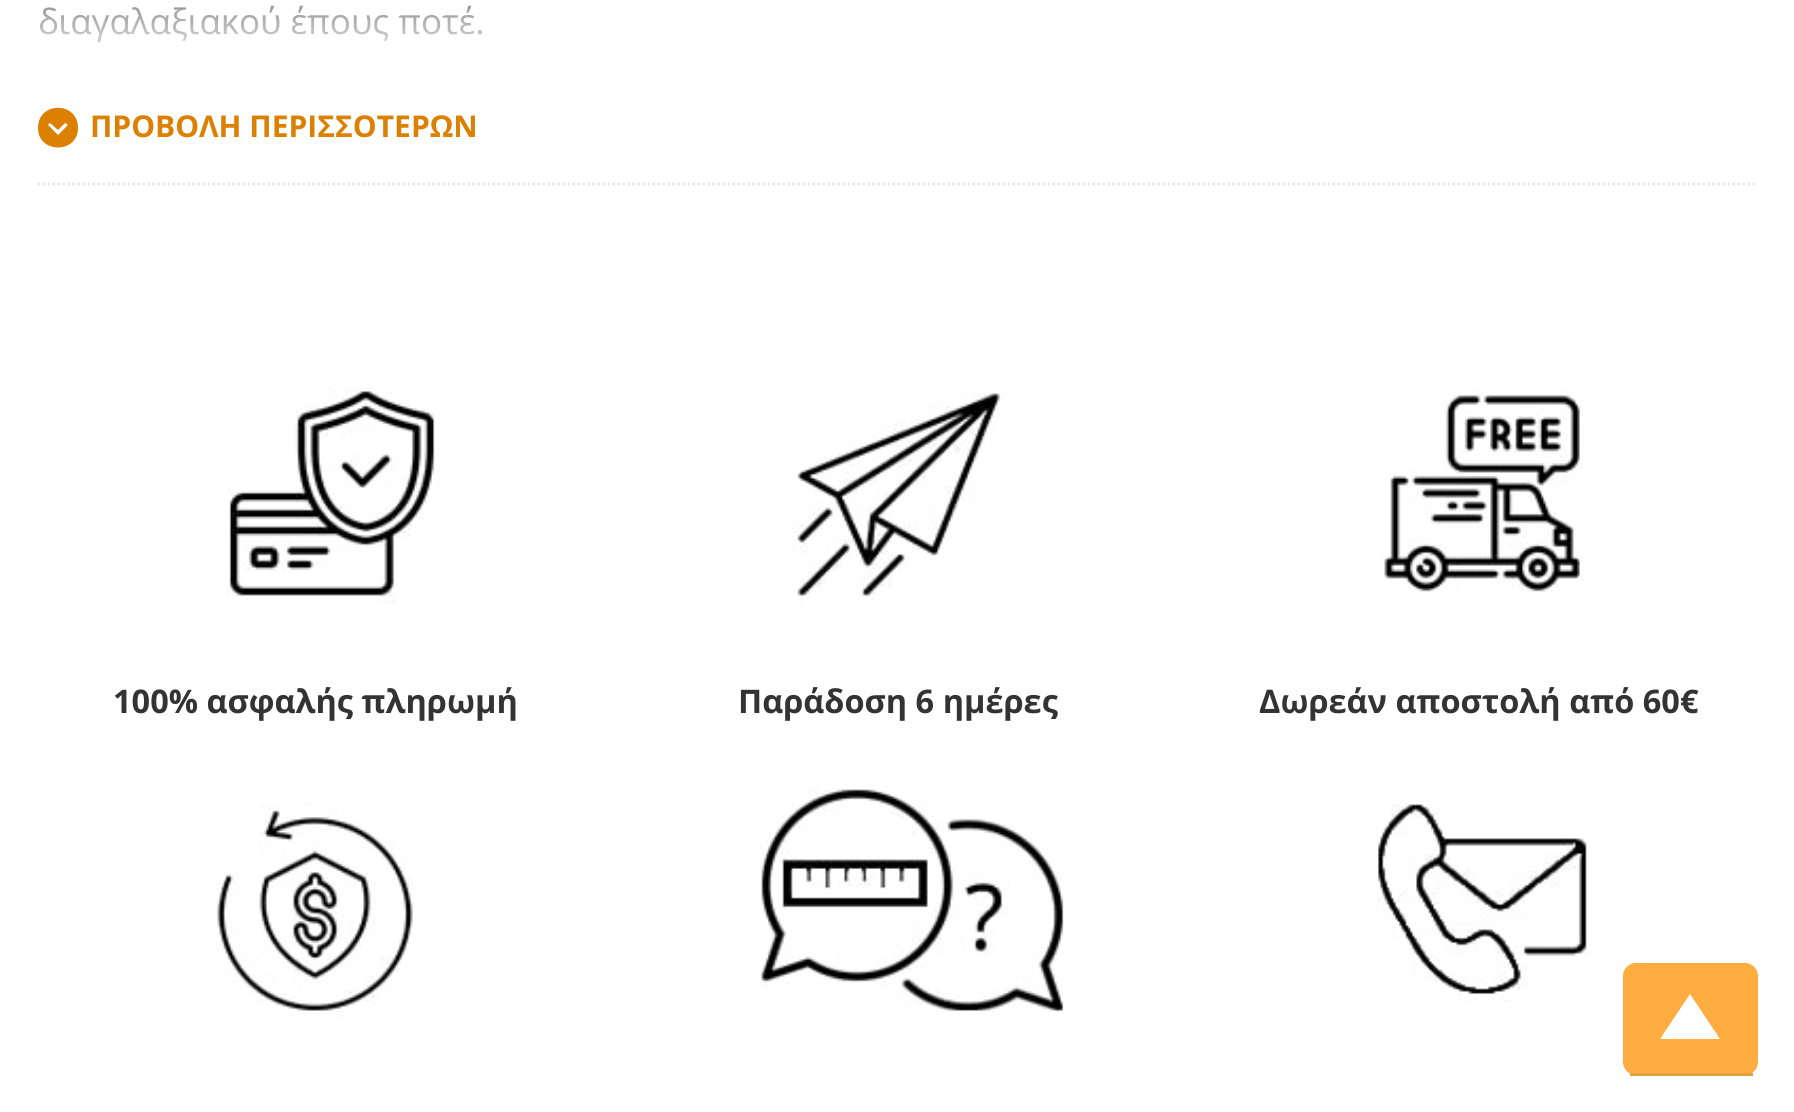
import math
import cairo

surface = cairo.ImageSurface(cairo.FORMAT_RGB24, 1794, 1112)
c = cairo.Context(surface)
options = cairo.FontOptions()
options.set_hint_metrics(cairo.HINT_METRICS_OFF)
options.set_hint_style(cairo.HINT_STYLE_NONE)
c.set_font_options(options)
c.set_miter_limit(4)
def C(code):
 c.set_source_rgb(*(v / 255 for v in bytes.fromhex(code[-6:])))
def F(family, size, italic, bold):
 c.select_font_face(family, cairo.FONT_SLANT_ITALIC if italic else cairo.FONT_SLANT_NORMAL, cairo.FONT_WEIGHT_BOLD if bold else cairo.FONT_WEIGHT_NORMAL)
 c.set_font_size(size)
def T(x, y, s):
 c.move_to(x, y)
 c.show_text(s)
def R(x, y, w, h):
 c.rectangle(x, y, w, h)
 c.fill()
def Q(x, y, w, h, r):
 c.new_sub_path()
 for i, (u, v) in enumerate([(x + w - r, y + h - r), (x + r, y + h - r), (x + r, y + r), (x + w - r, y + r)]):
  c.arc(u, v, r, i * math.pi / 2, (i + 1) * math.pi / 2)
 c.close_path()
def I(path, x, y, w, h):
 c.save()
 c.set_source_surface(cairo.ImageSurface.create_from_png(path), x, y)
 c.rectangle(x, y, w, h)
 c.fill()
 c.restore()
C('ffffff')
c.paint()
F('Open Sans',35,0,0)
C('666666')
T(38,34,'διαγαλαξιακού έπους ποτέ.')
gradient = cairo.LinearGradient(898,-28,898,73)
gradient.add_color_stop_rgba(0,1,1,1,0)
gradient.add_color_stop_rgba(1,1,1,1,1)
c.set_source(gradient)
R(39,5,443,38)
c.new_path()
c.move_to(37.5,184)
c.line_to(1757.5,184)
C('e5e5e5')
c.set_line_width(2.5)
c.set_dash([2.5,2.5])
c.stroke()
C('db8000')
c.new_path()
c.move_to(78,128)
c.curve_to(78,101,38,101,38,128)
c.curve_to(38,154,78,154,78,128)
c.close_path()
c.move_to(48,125)
c.line_to(50,123)
c.line_to(58,130)
c.line_to(65,123)
c.line_to(68,125)
c.line_to(58,135)
c.close_path()
c.fill()
F('Open Sans',30,0,1)
T(90,137,'ΠΡΟΒΟΛΗ ΠΕΡΙΣΣΟΤΕΡΩΝ')
I('1.png',226,387,214,218)
F('Open Sans',32.5,0,1)
C('333333')
T(113,713,'100% ασφαλής πληρωμή')
I('2.png',792,392,213,211)
T(738,713,'Παράδοση 6 ημέρες')
I('3.png',1381,388,203,205)
T(1259,713,'Δωρεάν αποστολή από 60€')
I('4.png',216,803,197,215)
I('5.png',760,788,304,225)
I('6.png',1375,803,213,199)
C('ffac40')
Q(1623,963,135,112,13)
c.fill()
C('e4a040')
R(1630,1073,123,3)
C('ffffff')
c.new_path()
c.move_to(1690,994)
c.line_to(1720,1039)
c.line_to(1660,1039)
c.close_path()
c.fill()
surface.write_to_png('o.png')
